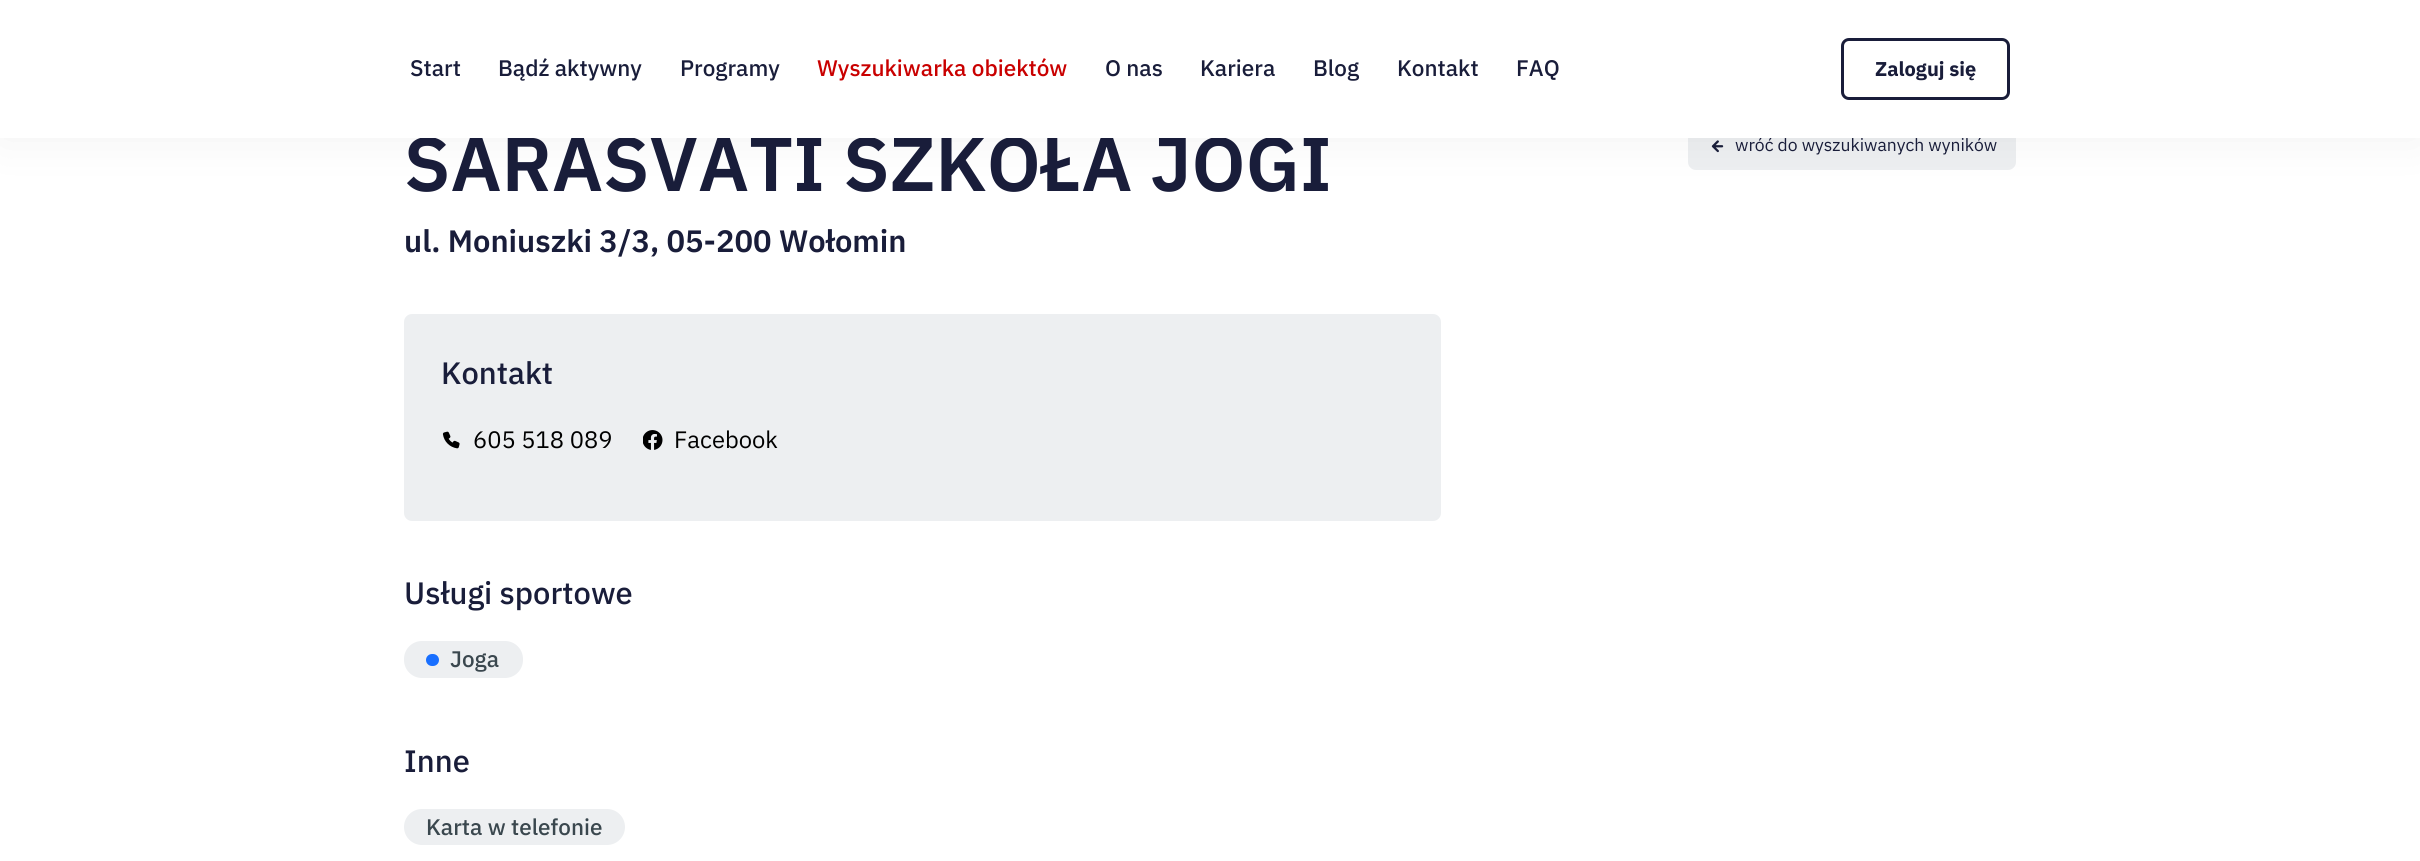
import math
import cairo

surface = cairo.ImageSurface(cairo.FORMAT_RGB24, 2420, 861)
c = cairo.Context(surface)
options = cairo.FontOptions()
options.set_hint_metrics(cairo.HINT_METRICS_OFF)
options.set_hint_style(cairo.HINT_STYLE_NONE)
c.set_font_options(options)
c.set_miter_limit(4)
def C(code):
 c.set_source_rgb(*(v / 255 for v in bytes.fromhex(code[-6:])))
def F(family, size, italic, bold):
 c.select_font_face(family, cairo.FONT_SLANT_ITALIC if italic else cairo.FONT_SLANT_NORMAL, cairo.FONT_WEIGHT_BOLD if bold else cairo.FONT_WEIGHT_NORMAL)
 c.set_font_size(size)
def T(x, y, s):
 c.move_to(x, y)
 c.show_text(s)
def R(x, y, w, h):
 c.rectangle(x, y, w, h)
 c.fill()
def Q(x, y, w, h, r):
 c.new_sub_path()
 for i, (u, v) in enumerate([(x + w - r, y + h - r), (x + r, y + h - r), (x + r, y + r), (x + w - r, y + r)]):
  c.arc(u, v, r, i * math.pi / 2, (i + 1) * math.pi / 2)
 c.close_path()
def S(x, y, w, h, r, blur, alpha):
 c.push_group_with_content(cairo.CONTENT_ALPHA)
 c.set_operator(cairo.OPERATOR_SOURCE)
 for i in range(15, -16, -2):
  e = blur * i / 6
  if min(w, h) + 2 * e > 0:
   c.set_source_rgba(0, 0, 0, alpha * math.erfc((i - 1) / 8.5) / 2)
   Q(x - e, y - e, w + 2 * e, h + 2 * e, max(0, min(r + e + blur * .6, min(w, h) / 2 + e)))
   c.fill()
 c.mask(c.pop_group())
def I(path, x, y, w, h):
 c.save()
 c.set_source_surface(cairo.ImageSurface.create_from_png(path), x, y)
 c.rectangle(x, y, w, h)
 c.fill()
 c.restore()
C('ffffff')
c.paint()
C('edeff1')
Q(1688,120,328,50,8)
c.fill()
I('1.png',1711,140,13,13)
C('000000')
S(0,0,2420,138,0,25,.06)
F('IBM Plex Sans SemiBold',76,0,0)
C('191d3a')
T(404,191,'SARASVATI SZKOŁA JOGI')
F('IBM Plex Sans',17.5,0,0)
T(1735,151,'wróć do wyszukiwanych wyników')
C('ffffff')
R(0,0,2420,138)
F('IBM Plex Sans Medium',22.5,0,0)
C('191d3a')
T(410,76,'Start')
T(498,76,'Bądź aktywny')
T(680,76,'Programy')
C('c90000')
T(817,76,'Wyszukiwarka obiektów')
C('191d3a')
T(1105,76,'O nas')
T(1200,76,'Kariera')
T(1313,76,'Blog')
T(1397,76,'Kontakt')
T(1516,76,'FAQ')
Q(1842.5,39.5,166,59,6.5)
c.set_line_width(3)
c.stroke()
F('IBM Plex Sans',20,0,1)
T(1875,76,'Zaloguj się')
F('IBM Plex Sans SemiBold',30.9,0,0)
T(404,252,'ul. Moniuszki 3/3, 05-200 Wołomin')
C('edeff1')
Q(404,314,1037,207,8)
c.fill()
F('IBM Plex Sans Medium',30.9,0,0)
C('191d3a')
T(441,384,'Kontakt')
I('2.png',442,431,18,18)
F('IBM Plex Sans',23.75,0,0)
C('000000')
T(473,448,'605 518 089')
I('3.png',643,430,20,20)
T(674,448,'Facebook')
F('IBM Plex Sans Medium',30.9,0,0)
C('191d3a')
T(404,604,'Usługi sportowe')
C('edeff1')
Q(404,641,119,37,18)
c.fill()
C('186fff')
Q(426,654,13,12,6)
c.fill()
F('IBM Plex Sans Medium',22.5,0,0)
C('3a474e')
T(450,667,'Joga')
F('IBM Plex Sans Medium',30.9,0,0)
C('191d3a')
T(404,772,'Inne')
C('edeff1')
Q(404,809,221,36,18)
c.fill()
F('IBM Plex Sans Medium',22.5,0,0)
C('3a474e')
T(426,835,'Karta w telefonie')
surface.write_to_png('o.png')
